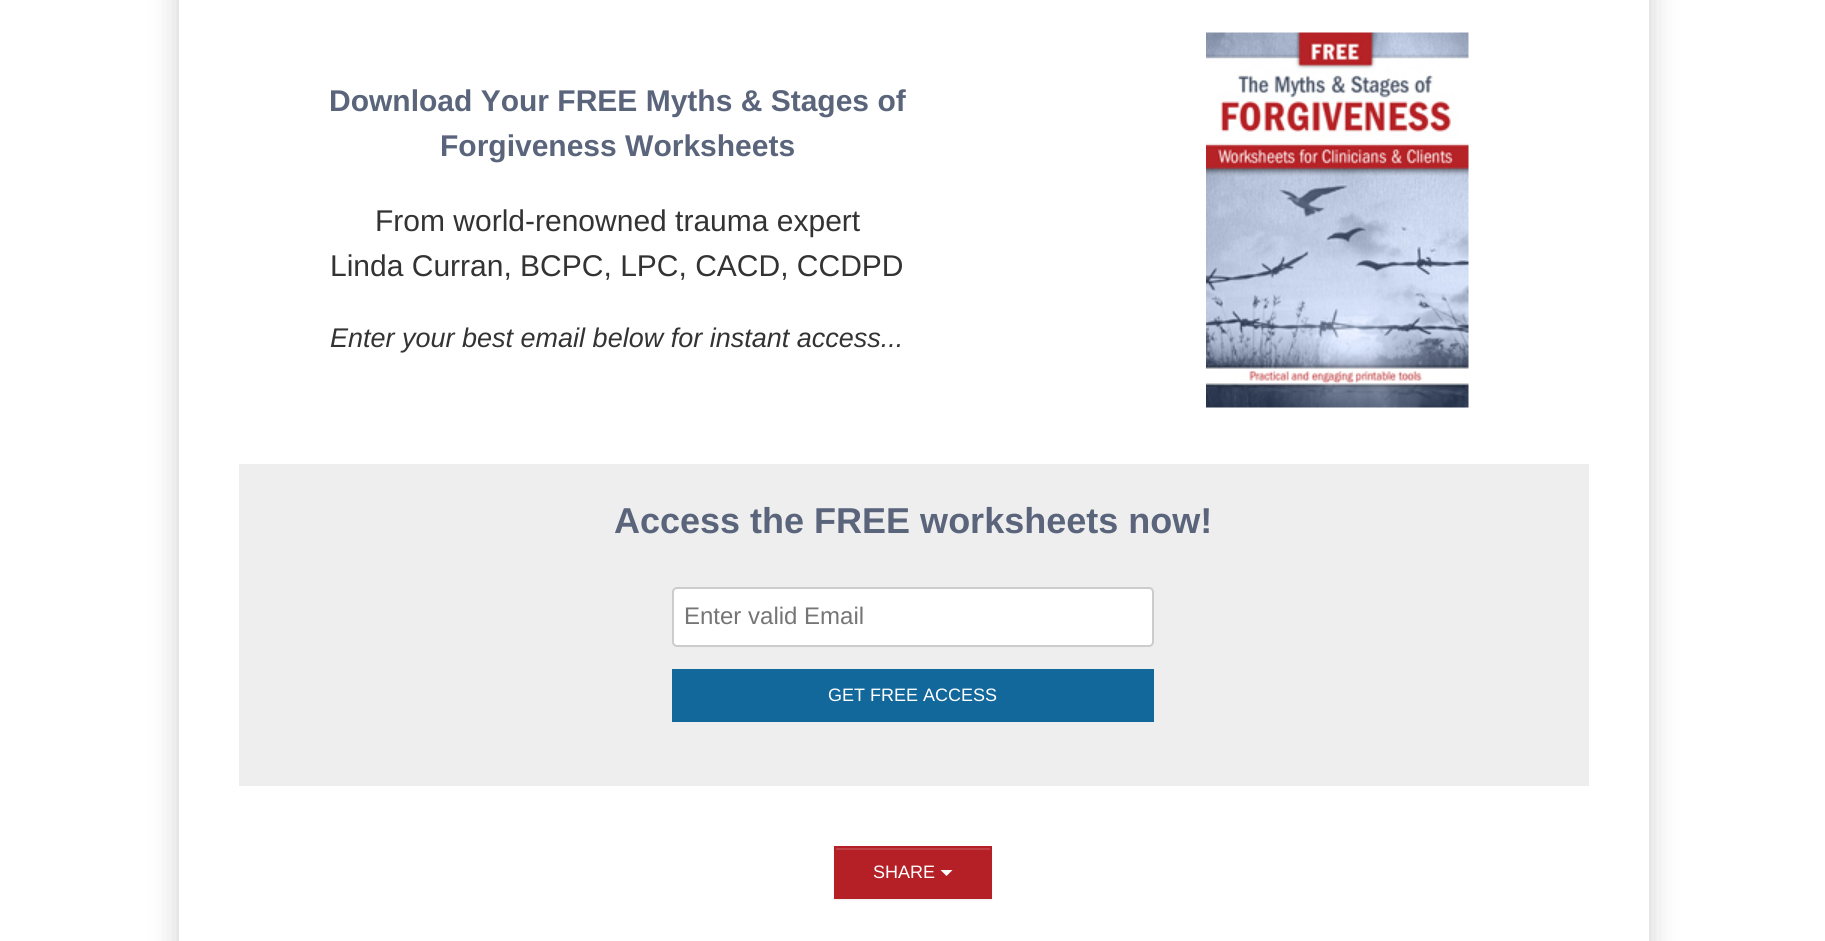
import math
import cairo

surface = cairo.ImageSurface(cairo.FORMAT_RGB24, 1825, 941)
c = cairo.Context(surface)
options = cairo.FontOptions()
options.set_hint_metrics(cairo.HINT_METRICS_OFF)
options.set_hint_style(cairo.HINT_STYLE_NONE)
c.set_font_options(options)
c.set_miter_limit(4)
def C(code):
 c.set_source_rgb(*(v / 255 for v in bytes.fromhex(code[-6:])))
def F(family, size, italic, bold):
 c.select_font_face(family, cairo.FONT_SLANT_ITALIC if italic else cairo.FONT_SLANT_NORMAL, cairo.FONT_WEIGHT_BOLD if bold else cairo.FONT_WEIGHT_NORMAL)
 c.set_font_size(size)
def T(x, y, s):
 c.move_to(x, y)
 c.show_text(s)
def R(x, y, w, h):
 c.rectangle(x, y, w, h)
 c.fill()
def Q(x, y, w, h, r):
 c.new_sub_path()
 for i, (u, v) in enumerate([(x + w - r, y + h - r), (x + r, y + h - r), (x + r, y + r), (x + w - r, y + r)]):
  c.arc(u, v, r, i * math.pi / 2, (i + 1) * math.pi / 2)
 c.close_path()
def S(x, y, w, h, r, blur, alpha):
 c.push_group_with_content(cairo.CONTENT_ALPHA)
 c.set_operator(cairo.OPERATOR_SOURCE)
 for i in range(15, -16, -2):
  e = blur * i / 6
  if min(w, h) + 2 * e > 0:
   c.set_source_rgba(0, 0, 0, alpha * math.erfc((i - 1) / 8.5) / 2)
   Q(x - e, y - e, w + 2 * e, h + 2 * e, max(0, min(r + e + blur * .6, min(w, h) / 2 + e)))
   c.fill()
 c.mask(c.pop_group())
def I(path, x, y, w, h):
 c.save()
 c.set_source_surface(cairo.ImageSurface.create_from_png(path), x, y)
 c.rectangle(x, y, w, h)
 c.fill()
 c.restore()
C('ffffff')
c.paint()
c.save()
c.set_fill_rule(cairo.FILL_RULE_EVEN_ODD)
c.new_path()
c.move_to(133,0)
c.line_to(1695,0)
c.line_to(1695,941)
c.line_to(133,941)
c.close_path()
c.move_to(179,-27)
c.line_to(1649,-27)
c.line_to(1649,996)
c.line_to(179,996)
c.close_path()
c.clip()
C('000000')
S(179,-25,1470,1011,0,15,.2)
c.restore()
F('Liberation Sans',30,0,1)
C('5a657c')
T(329,111,'Download Your FREE Myths & Stages of')
T(440,156,'Forgiveness Worksheets')
F('Liberation Sans',30,0,0)
C('333333')
T(375,231,'From world-renowned trauma expert')
T(330,276,'Linda Curran, BCPC, LPC, CACD, CCDPD')
F('Liberation Sans',27,1,0)
T(330,347,'Enter your best email below for instant access...')
I('1.png',1206,32,263,376)
C('eeeeee')
R(239,464,1350,322)
F('Liberation Sans',36,0,1)
C('5a657c')
T(614,533,'Access the FREE worksheets now!')
C('ffffff')
Q(673,588,480,58,4)
c.fill_preserve()
C('cccccc')
c.stroke()
F('Liberation Sans',24,0,0)
C('757575')
T(684,624,'Enter valid Email')
C('12679b')
R(672,669,482,53)
F('Liberation Sans',18,0,0)
C('ffffff')
T(828,701,'GET FREE ACCESS')
C('000000')
S(834,848,158,52,0,1,.07)
C('b42025')
R(834,846,158,53)
C('bf4146')
R(836,848,154,2)
C('ffffff')
T(873,878,'SHARE')
c.new_path()
c.move_to(940.5,870)
c.line_to(952.5,870)
c.line_to(946.5,876)
c.close_path()
c.fill()
surface.write_to_png('o.png')
